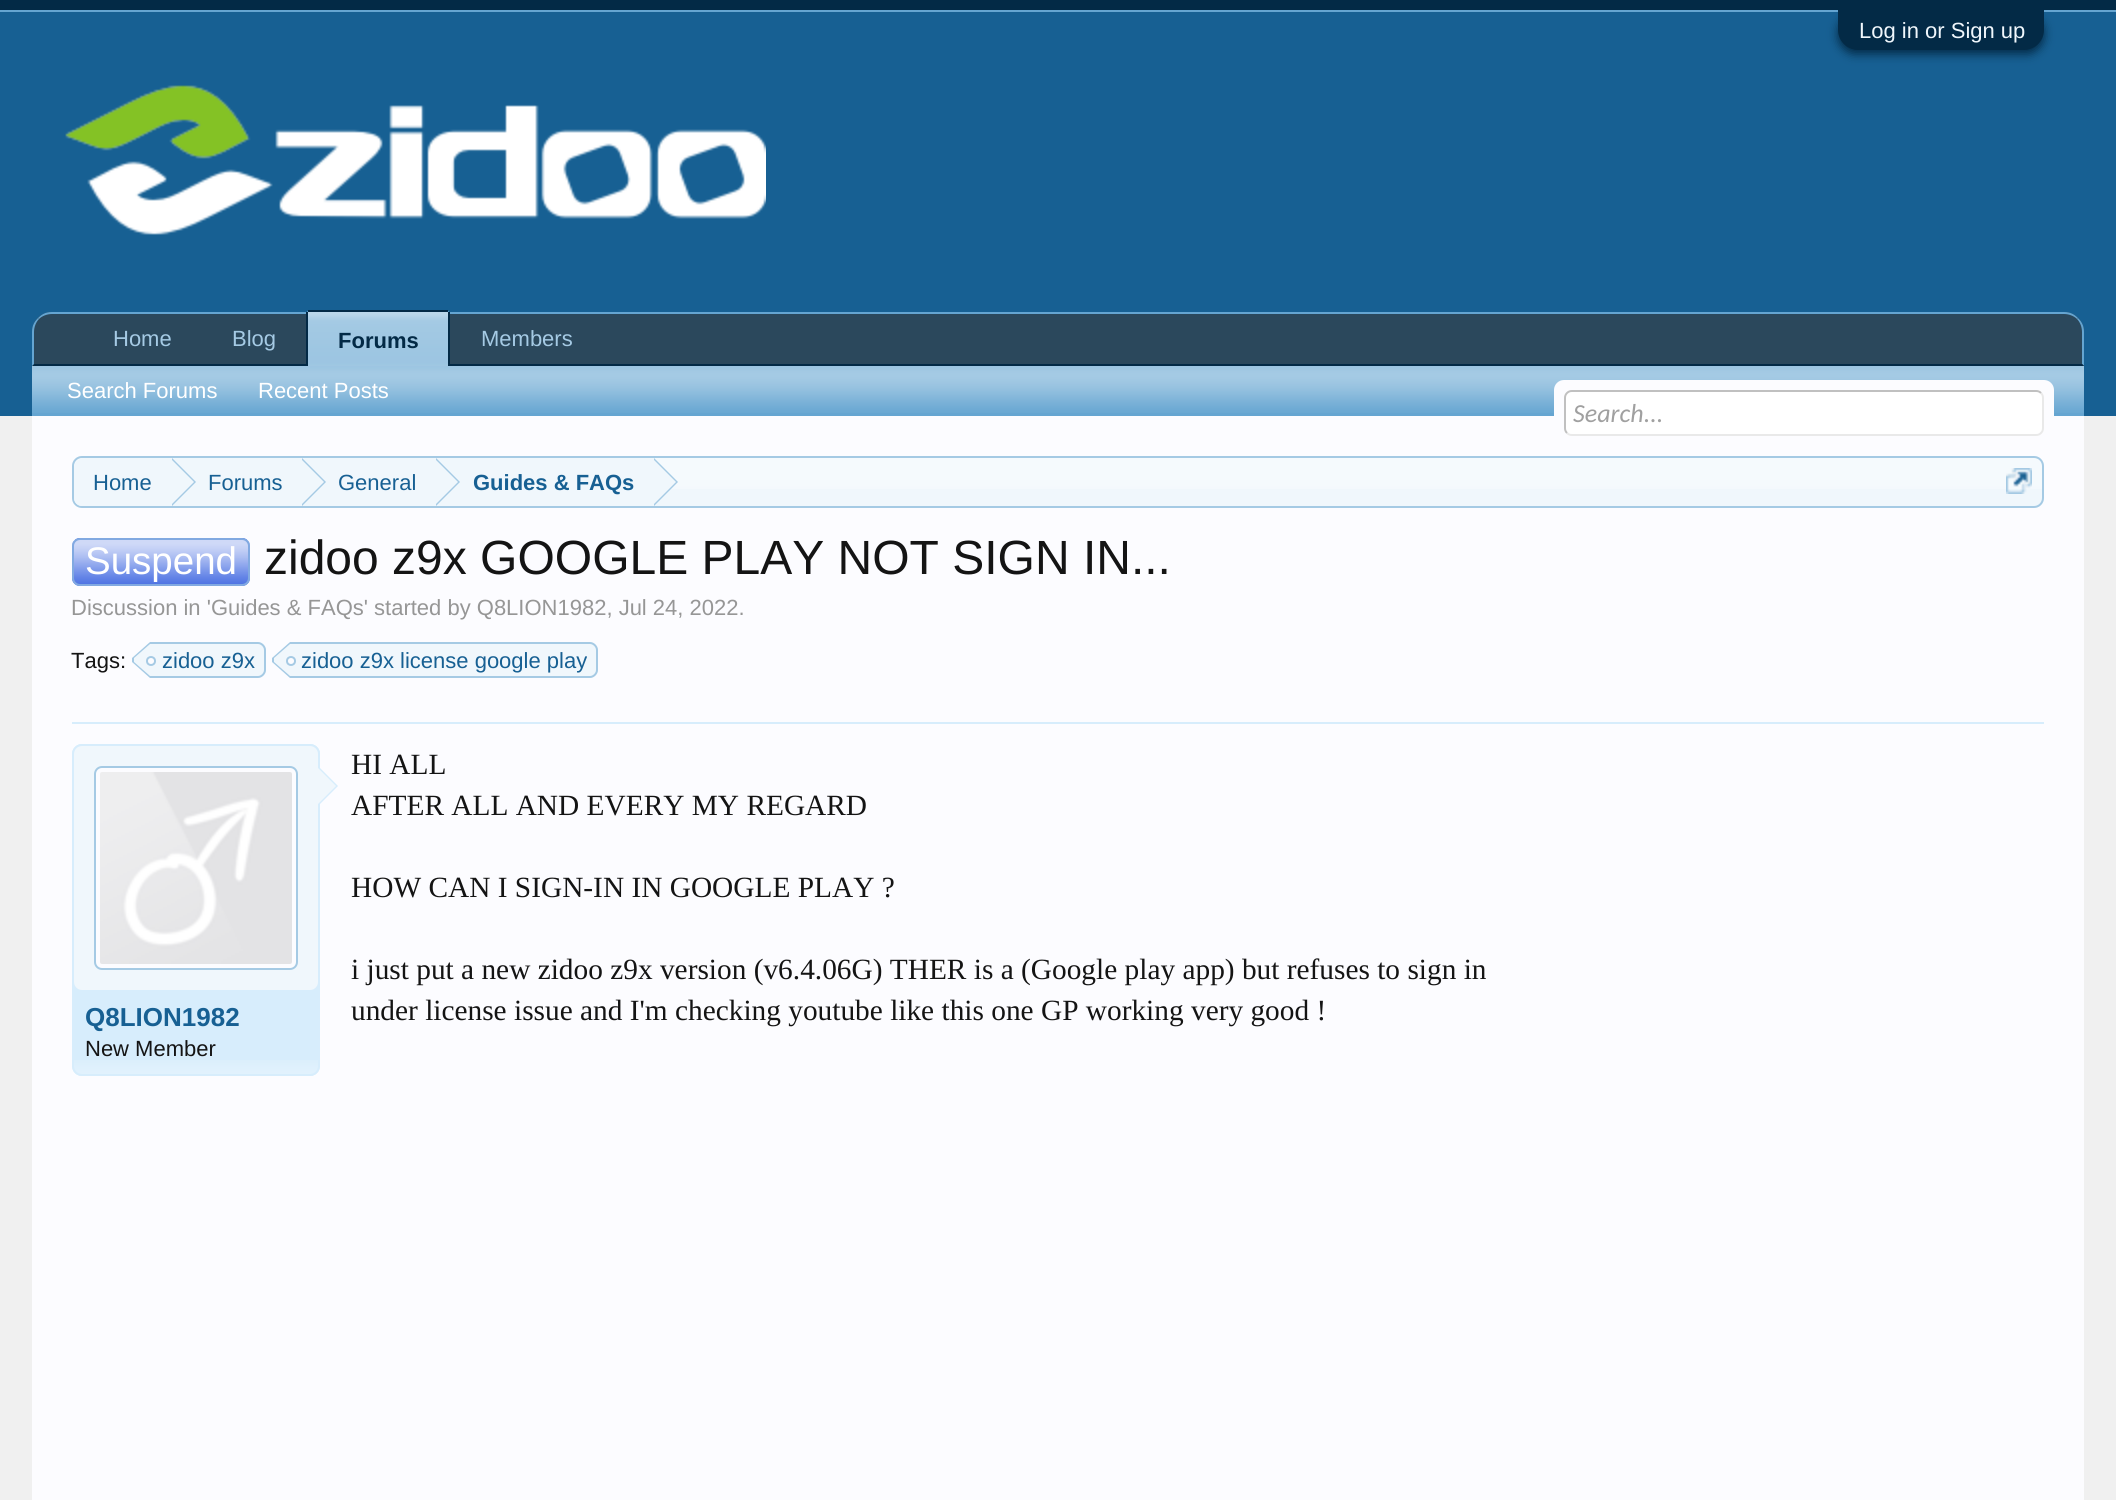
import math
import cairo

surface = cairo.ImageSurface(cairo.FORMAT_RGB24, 2116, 1500)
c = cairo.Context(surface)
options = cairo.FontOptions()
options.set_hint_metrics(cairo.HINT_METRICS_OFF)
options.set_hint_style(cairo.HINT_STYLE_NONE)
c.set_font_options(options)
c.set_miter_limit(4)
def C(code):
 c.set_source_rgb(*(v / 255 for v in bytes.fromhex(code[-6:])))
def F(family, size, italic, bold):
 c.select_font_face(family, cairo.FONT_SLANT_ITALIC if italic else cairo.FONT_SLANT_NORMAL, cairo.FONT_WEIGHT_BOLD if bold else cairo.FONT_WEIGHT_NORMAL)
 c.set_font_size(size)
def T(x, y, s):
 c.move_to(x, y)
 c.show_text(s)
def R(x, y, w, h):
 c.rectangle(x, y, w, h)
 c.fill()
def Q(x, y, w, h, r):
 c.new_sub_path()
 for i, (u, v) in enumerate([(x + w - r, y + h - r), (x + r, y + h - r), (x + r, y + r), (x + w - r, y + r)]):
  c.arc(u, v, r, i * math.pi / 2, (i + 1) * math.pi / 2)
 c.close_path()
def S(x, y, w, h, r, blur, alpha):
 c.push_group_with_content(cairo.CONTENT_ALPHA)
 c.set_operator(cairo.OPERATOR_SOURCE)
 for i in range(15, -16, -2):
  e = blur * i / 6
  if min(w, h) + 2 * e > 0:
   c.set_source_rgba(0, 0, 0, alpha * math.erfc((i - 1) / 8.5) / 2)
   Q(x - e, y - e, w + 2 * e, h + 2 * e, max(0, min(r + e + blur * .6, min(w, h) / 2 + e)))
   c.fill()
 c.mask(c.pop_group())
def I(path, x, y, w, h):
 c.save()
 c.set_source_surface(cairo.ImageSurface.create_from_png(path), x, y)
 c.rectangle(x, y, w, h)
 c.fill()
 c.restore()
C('f0f0f0')
c.paint()
C('032a46')
R(0,0,2116,10)
C('65a5d1')
R(0,10,2116,2)
C('176093')
R(0,12,2116,404)
C('032a46')
S(1838,14,206,40,20,5,1)
C('032a46')
c.new_path()
c.move_to(1838,10)
c.line_to(2044,10)
c.line_to(2044,30)
c.curve_to(2044,41,2035,50,2024,50)
c.line_to(1858,50)
c.curve_to(1847,50,1838,41,1838,30)
c.close_path()
c.fill()
F('Liberation Sans',22,0,0)
C('f0f7fc')
T(1859,38,'Log in or Sign up')
I('1.png',65,85,701,150)
C('2b485c')
c.new_path()
c.move_to(52,312)
c.line_to(2064,312)
c.curve_to(2075,312,2084,321,2084,332)
c.line_to(2084,366)
c.line_to(32,366)
c.line_to(32,332)
c.curve_to(32,321,41,312,52,312)
c.close_path()
c.fill()
C('65a5d1')
c.new_path()
c.move_to(52,312)
c.curve_to(46,312,42,314,38,318)
c.line_to(39,319)
c.curve_to(42,316,47,314,52,314)
c.line_to(2064,314)
c.curve_to(2069,314,2074,316,2077,319)
c.line_to(2078,318)
c.curve_to(2074,314,2070,312,2064,312)
c.close_path()
c.fill()
c.new_path()
c.move_to(2084,366)
c.line_to(2084,332)
c.curve_to(2084,326,2082,322,2078,318)
c.line_to(2077,319)
c.curve_to(2080,322,2082,327,2082,332)
c.line_to(2082,364)
c.close_path()
c.fill()
C('032a46')
c.new_path()
c.move_to(2084,366)
c.line_to(2082,364)
c.line_to(34,364)
c.line_to(32,366)
c.close_path()
c.fill()
C('65a5d1')
c.new_path()
c.move_to(32,366)
c.line_to(34,364)
c.line_to(34,332)
c.curve_to(34,327,36,322,39,319)
c.line_to(38,318)
c.curve_to(34,322,32,326,32,332)
c.close_path()
c.fill()
C('a5cae4')
T(113,346,'Home')
T(232,346,'Blog')
T(481,346,'Members')
C('65a5d1')
c.new_path()
c.move_to(310,310)
c.line_to(446,310)
c.curve_to(448,310,450,312,450,314)
c.line_to(450,366)
c.line_to(306,366)
c.line_to(306,314)
c.curve_to(306,312,308,310,310,310)
c.close_path()
c.fill()
I('2.png',308,312,140,54)
C('032a46')
R(308,310,140,2)
R(448,312,2,54)
R(306,312,2,54)
F('Liberation Sans',22,0,1)
T(338,348,'Forums')
C('65a5d1')
R(32,366,2052,50)
I('3.png',32,366,2052,47)
F('Liberation Sans',22,0,0)
C('ffffff')
T(67,398,'Search Forums')
T(258,398,'Recent Posts')
C('fcfcff')
R(32,416,2052,1084)
Q(1554,380,500,56,10)
c.fill()
C('ffffff')
Q(1564,390,480,46,8)
c.fill()
c.new_path()
c.move_to(2041,393)
c.curve_to(2042.5,394.5,2043,396,2043,398)
c.line_to(2043,428)
c.curve_to(2043,430,2042.5,431.5,2041,433)
c.curve_to(2039.5,434.5,2038,435,2036,435)
c.line_to(1572,435)
c.curve_to(1570,435,1568.5,434.5,1567,433)
C('e9e9e9')
c.stroke()
c.new_path()
c.move_to(1567,433)
c.curve_to(1565.5,431.5,1565,430,1565,428)
c.line_to(1565,398)
c.curve_to(1565,396,1565.5,394.5,1567,393)
c.curve_to(1568.5,391.5,1570,391,1572,391)
c.line_to(2036,391)
c.curve_to(2038,391,2039.5,391.5,2041,393)
C('c0c0c0')
c.stroke()
F('Carlito',26,1,0)
C('a0a0a0')
T(1573,422,'Search...')
C('f0f7fc')
Q(72,456,1972,52,10)
c.fill()
I('4.png',72,458,1972,31)
Q(73,457,1970,50,9)
C('a5cae4')
c.stroke()
c.save()
Q(74,458,1968,48,8)
c.clip()
C('f0f7fc')
c.new_path()
c.move_to(84,458)
c.line_to(172,458)
c.line_to(172,508)
c.line_to(84,508)
c.curve_to(78.5,508,74,503.5,74,498)
c.line_to(74,468)
c.curve_to(74,462.5,78.5,458,84,458)
c.close_path()
c.fill()
c.restore()
F('Liberation Sans',22,0,0)
C('176093')
T(93,490,'Home')
C('f0f7fc')
R(172,458,482,31)
C('a5cae4')
c.new_path()
c.move_to(172,506)
c.line_to(172,458)
c.line_to(196,482)
c.close_path()
c.fill()
C('f0f7fc')
c.new_path()
c.move_to(170,506)
c.line_to(170,458)
c.line_to(194,482)
c.close_path()
c.fill()
C('176093')
T(208,490,'Forums')
C('a5cae4')
c.new_path()
c.move_to(302,506)
c.line_to(302,458)
c.line_to(326,482)
c.close_path()
c.fill()
C('f0f7fc')
c.new_path()
c.move_to(300,506)
c.line_to(300,458)
c.line_to(324,482)
c.close_path()
c.fill()
C('176093')
T(338,490,'General')
C('a5cae4')
c.new_path()
c.move_to(436,506)
c.line_to(436,458)
c.line_to(460,482)
c.close_path()
c.fill()
C('f0f7fc')
c.new_path()
c.move_to(434,506)
c.line_to(434,458)
c.line_to(458,482)
c.close_path()
c.fill()
F('Liberation Sans',22,0,1)
C('176093')
T(473,490,'Guides & FAQs')
C('a5cae4')
c.new_path()
c.move_to(654,506)
c.line_to(654,458)
c.line_to(678,482)
c.close_path()
c.fill()
C('f0f7fc')
c.new_path()
c.move_to(652,506)
c.line_to(652,458)
c.line_to(676,482)
c.close_path()
c.fill()
I('5.png',2006,468,26,26)
C('4169e1')
Q(72,538,178,48,8)
c.fill()
I('6.png',72,540,178,46)
Q(73,539,176,46,7)
C('81a9e1')
c.stroke()
F('Liberation Sans',38.5,0,0)
C('ffffff')
T(85,574,'Suspend')
F('Liberation Sans',48,0,0)
C('141414')
T(264,574,'zidoo z9x GOOGLE PLAY NOT SIGN IN...')
F('Liberation Sans',22,0,0)
C('969696')
T(71,615,'Discussion in \'Guides & FAQs\' started by Q8LION1982, Jul 24, 2022.')
C('141414')
T(71,668,'Tags:')
C('f0f7fc')
c.new_path()
c.move_to(150,642)
c.line_to(258,642)
c.curve_to(262.5,642,266,645.5,266,650)
c.line_to(266,670)
c.curve_to(266,674.5,262.5,678,258,678)
c.line_to(150,678)
c.close_path()
c.fill()
C('a5cae4')
c.set_fill_rule(cairo.FILL_RULE_EVEN_ODD)
c.new_path()
c.move_to(150,642)
c.line_to(258,642)
c.curve_to(262,642,266,646,266,650)
c.line_to(266,670)
c.curve_to(266,674,262,678,258,678)
c.line_to(150,678)
c.close_path()
c.move_to(150,644)
c.line_to(258,644)
c.curve_to(261,644,264,647,264,650)
c.line_to(264,670)
c.curve_to(264,673,261,676,258,676)
c.line_to(150,676)
c.close_path()
c.fill()
c.set_fill_rule(cairo.FILL_RULE_WINDING)
c.new_path()
c.move_to(150,642)
c.line_to(150,678)
c.line_to(132,662)
c.line_to(132,658)
c.close_path()
c.fill()
C('f0f7fc')
c.new_path()
c.move_to(150,644)
c.line_to(150,676)
c.line_to(134,662)
c.line_to(134,658)
c.close_path()
c.fill()
C('fcfcff')
c.arc(151,661,4,0,2 * math.pi)
c.fill_preserve()
C('a5cae4')
c.stroke()
C('176093')
T(162,668,'zidoo z9x')
C('f0f7fc')
c.new_path()
c.move_to(290,642)
c.line_to(590,642)
c.curve_to(594.5,642,598,645.5,598,650)
c.line_to(598,670)
c.curve_to(598,674.5,594.5,678,590,678)
c.line_to(290,678)
c.close_path()
c.fill()
C('a5cae4')
c.set_fill_rule(cairo.FILL_RULE_EVEN_ODD)
c.new_path()
c.move_to(290,642)
c.line_to(590,642)
c.curve_to(594,642,598,646,598,650)
c.line_to(598,670)
c.curve_to(598,674,594,678,590,678)
c.line_to(290,678)
c.close_path()
c.move_to(290,644)
c.line_to(590,644)
c.curve_to(593,644,596,647,596,650)
c.line_to(596,670)
c.curve_to(596,673,593,676,590,676)
c.line_to(290,676)
c.close_path()
c.fill()
c.set_fill_rule(cairo.FILL_RULE_WINDING)
c.new_path()
c.move_to(290,642)
c.line_to(290,678)
c.line_to(272,662)
c.line_to(272,658)
c.close_path()
c.fill()
C('f0f7fc')
c.new_path()
c.move_to(290,644)
c.line_to(290,676)
c.line_to(274,662)
c.line_to(274,658)
c.close_path()
c.fill()
C('fcfcff')
c.arc(291,661,4,0,2 * math.pi)
c.fill_preserve()
C('a5cae4')
c.stroke()
C('176093')
T(301,668,'zidoo z9x license google play')
C('d7edfc')
R(72,722,1972,2)
F('Liberation Serif',29.35,0,0)
C('141414')
T(351,774,'HI ALL')
T(351,815,'AFTER ALL AND EVERY MY REGARD')
T(351,897,'HOW CAN I SIGN-IN IN GOOGLE PLAY ?')
T(351,979,'i just put a new zidoo z9x version (v6.4.06G) THER is a (Google play app) but refuses to sign in')
T(351,1020,'under license issue and I\'m checking youtube like this one GP working very good !')
C('d7edfc')
Q(72,744,248,332,10)
c.fill()
I('7.png',72,1060,248,14)
Q(73,745,246,330,9)
c.stroke()
C('f0f7fc')
Q(74,746,244,244,8)
c.fill()
C('fcfcff')
Q(95,767,202,202,7)
c.fill_preserve()
C('a5cae4')
c.stroke()
I('8.png',100,772,192,192)
C('d7edfc')
c.new_path()
c.move_to(318,806)
c.line_to(318,766)
c.line_to(338,786)
c.close_path()
c.fill()
C('f0f7fc')
c.new_path()
c.move_to(316,806)
c.line_to(316,766)
c.line_to(336,786)
c.close_path()
c.fill()
F('Liberation Sans',26,0,1)
C('176093')
T(85,1026,'Q8LION1982')
F('Liberation Sans',22,0,0)
C('141414')
T(85,1056,'New Member')
surface.write_to_png('o.png')
